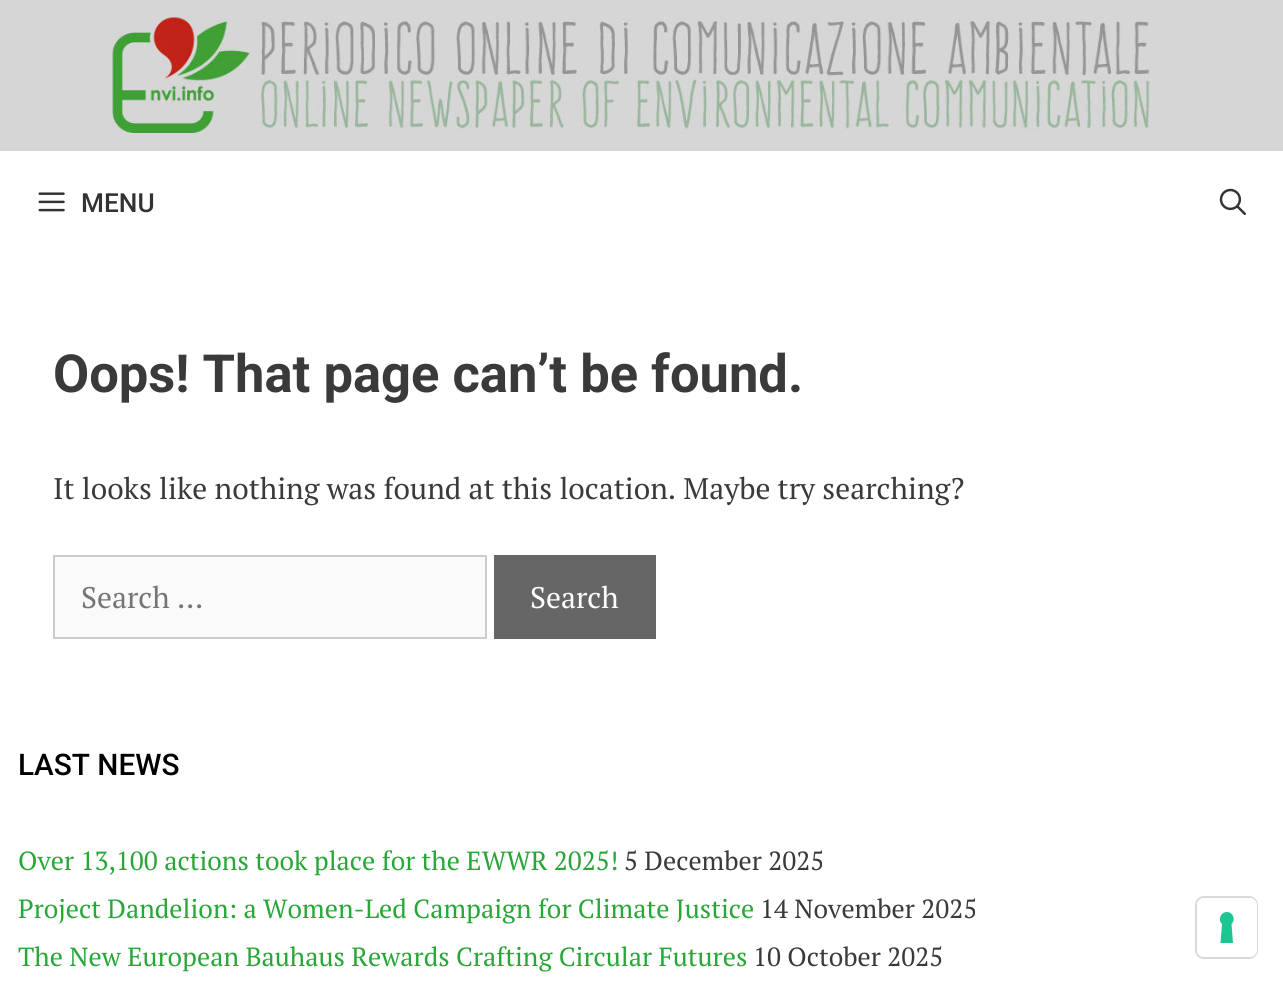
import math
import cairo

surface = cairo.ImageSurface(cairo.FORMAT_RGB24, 1283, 985)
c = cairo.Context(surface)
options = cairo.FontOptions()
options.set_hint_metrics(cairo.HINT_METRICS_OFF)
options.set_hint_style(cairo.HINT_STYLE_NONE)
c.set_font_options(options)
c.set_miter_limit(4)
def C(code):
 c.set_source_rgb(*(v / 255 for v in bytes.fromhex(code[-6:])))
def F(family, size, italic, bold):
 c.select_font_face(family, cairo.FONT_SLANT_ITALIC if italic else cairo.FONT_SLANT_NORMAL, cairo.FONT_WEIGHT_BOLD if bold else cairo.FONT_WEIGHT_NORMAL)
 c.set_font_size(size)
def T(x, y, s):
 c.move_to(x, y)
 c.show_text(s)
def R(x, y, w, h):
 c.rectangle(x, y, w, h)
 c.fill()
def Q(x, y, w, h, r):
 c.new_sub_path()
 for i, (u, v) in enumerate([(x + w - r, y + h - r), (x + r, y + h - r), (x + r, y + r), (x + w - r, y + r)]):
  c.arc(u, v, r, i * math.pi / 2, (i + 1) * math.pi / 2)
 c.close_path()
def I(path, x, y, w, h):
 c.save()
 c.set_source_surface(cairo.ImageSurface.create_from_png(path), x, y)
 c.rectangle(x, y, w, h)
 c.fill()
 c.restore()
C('ffffff')
c.paint()
C('d6d6d6')
R(0,0,1283,151)
I('1.png',112,17,1038,116)
I('2.png',38,192,27,20)
F('Roboto Medium',26.25,0,0)
C('333333')
T(81,212,'MENU')
I('3.png',1219,188,27,27)
F('Roboto',52.5,0,1)
C('3a3a3a')
T(53,392,'Oops! That page can’t be found.')
F('PT Serif',29.75,0,0)
T(53,499,'It looks like nothing was found at this location. Maybe try searching?')
C('fafafa')
c.rectangle(54,556,432,82)
c.fill_preserve()
C('cccccc')
c.stroke()
C('757575')
T(81,608,'Search …')
C('666666')
R(494,555,162,84)
C('ffffff')
T(530,608,'Search')
F('Roboto Medium',29.75,0,0)
C('000000')
T(18,775,'LAST NEWS')
F('PT Serif',26.25,0,0)
C('29a638')
T(18,870,'Over 13,100 actions took place for the EWWR 2025!')
C('3a3a3a')
T(624,870,'5 December 2025')
C('29a638')
T(18,918,'Project Dandelion: a Women-Led Campaign for Climate Justice')
C('3a3a3a')
T(760,918,'14 November 2025')
C('29a638')
T(18,966,'The New European Bauhaus Rewards Crafting Circular Futures')
C('3a3a3a')
T(753,966,'10 October 2025')
Q(1196,897,61,61,8)
C('d9d9d9')
c.stroke()
C('ffffff')
Q(1197,898,60,59,7)
c.fill()
C('1cc691')
c.set_fill_rule(cairo.FILL_RULE_EVEN_ODD)
c.new_path()
c.move_to(1227,912)
c.curve_to(1233,912,1236,920,1231.5,924)
c.line_to(1233,943)
c.line_to(1220.5,943)
c.line_to(1222,924)
c.curve_to(1217.5,920,1220.5,912,1227,912)
c.close_path()
c.fill()
surface.write_to_png('o.png')
